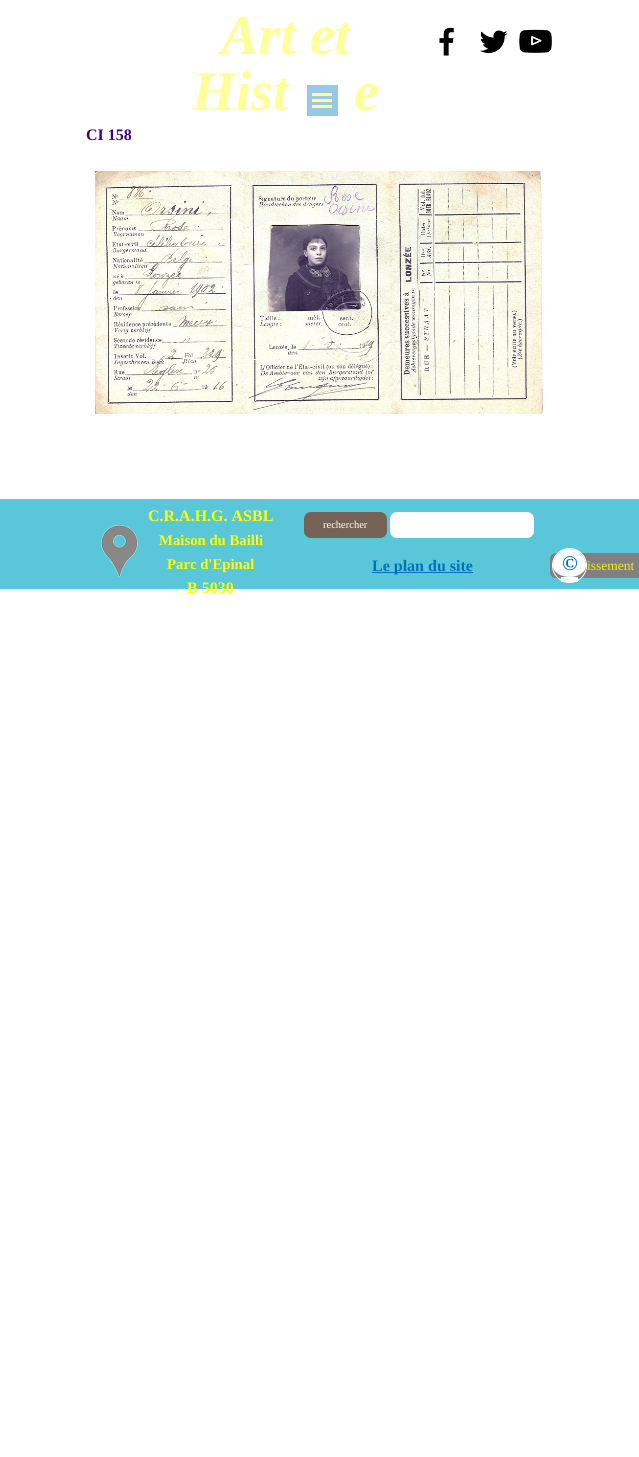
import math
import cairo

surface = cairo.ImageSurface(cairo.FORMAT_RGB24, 639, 1457)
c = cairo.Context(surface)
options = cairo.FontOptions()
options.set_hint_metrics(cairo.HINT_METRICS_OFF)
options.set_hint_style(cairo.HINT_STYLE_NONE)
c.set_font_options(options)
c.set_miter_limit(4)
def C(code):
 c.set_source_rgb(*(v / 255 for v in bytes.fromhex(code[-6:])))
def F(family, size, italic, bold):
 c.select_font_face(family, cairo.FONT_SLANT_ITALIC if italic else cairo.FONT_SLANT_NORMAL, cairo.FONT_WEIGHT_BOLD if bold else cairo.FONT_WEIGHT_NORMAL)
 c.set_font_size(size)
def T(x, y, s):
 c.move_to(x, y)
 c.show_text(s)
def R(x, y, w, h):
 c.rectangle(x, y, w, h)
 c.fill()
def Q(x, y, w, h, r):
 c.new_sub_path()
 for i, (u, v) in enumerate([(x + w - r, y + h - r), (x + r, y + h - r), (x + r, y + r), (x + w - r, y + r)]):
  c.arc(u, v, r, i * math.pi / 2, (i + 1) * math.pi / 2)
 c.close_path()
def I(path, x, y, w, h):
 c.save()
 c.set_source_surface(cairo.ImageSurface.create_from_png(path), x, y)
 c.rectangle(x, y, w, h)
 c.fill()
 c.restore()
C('ffffff')
c.paint()
F('Liberation Serif',56,1,1)
C('ffff99')
T(221,54,'Art et')
T(192,110,'Hist')
T(354,110,'e')
I('1.png',439,27,15,29)
I('2.png',480,30,28,24)
I('3.png',519,29,33,24)
C('99c7e4')
R(307,85,31,31)
C('ffff99')
R(312,93,20,3)
R(312,99,20,3)
R(312,105,20,3)
F('Liberation Serif',16,0,1)
C('400080')
T(86,140,'CI 158')
I('4.png',95,171,450,243)
C('59c6d9')
R(0,499,639,90)
I('5.png',101,525,37,52)
C('ffff00')
T(148,521,'C.R.A.H.G. ASBL')
F('Liberation Serif',14.75,0,1)
T(159,545,'Maison du Bailli')
T(167,569,'Parc d\'Epinal')
F('Liberation Serif',16,0,1)
T(187,593,'B 5030')
C('756254')
Q(304,512,83,26,7)
c.fill()
F('Liberation Serif',10.5,0,0)
C('ffffff')
T(323,528,'rechercher')
Q(390,512,144,26,7)
c.fill()
C('0072bb')
R(372,572,101,1)
F('Liberation Serif',16,0,1)
T(372,571,'Le plan du site')
C('808080')
Q(550,553,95,25,6)
c.fill()
C('ffffff')
c.new_path()
c.move_to(569.5,549)
c.curve_to(578.5,549,586,556.5,586,565.5)
c.curve_to(586,572,578.5,577,569.5,577)
c.curve_to(560.5,577,553,572,553,565.5)
c.curve_to(553,556.5,560.5,549,569.5,549)
c.close_path()
c.fill()
c.arc(569.5,565.5,17,0,2 * math.pi)
c.set_line_width(1)
c.stroke()
R(561,577,17,5)
F('Liberation Serif',21,0,1)
C('0072bb')
T(562,570,'©')
F('Liberation Serif',13.5,0,0)
C('f6eb13')
T(587,570,'issement')
surface.write_to_png('o.png')
